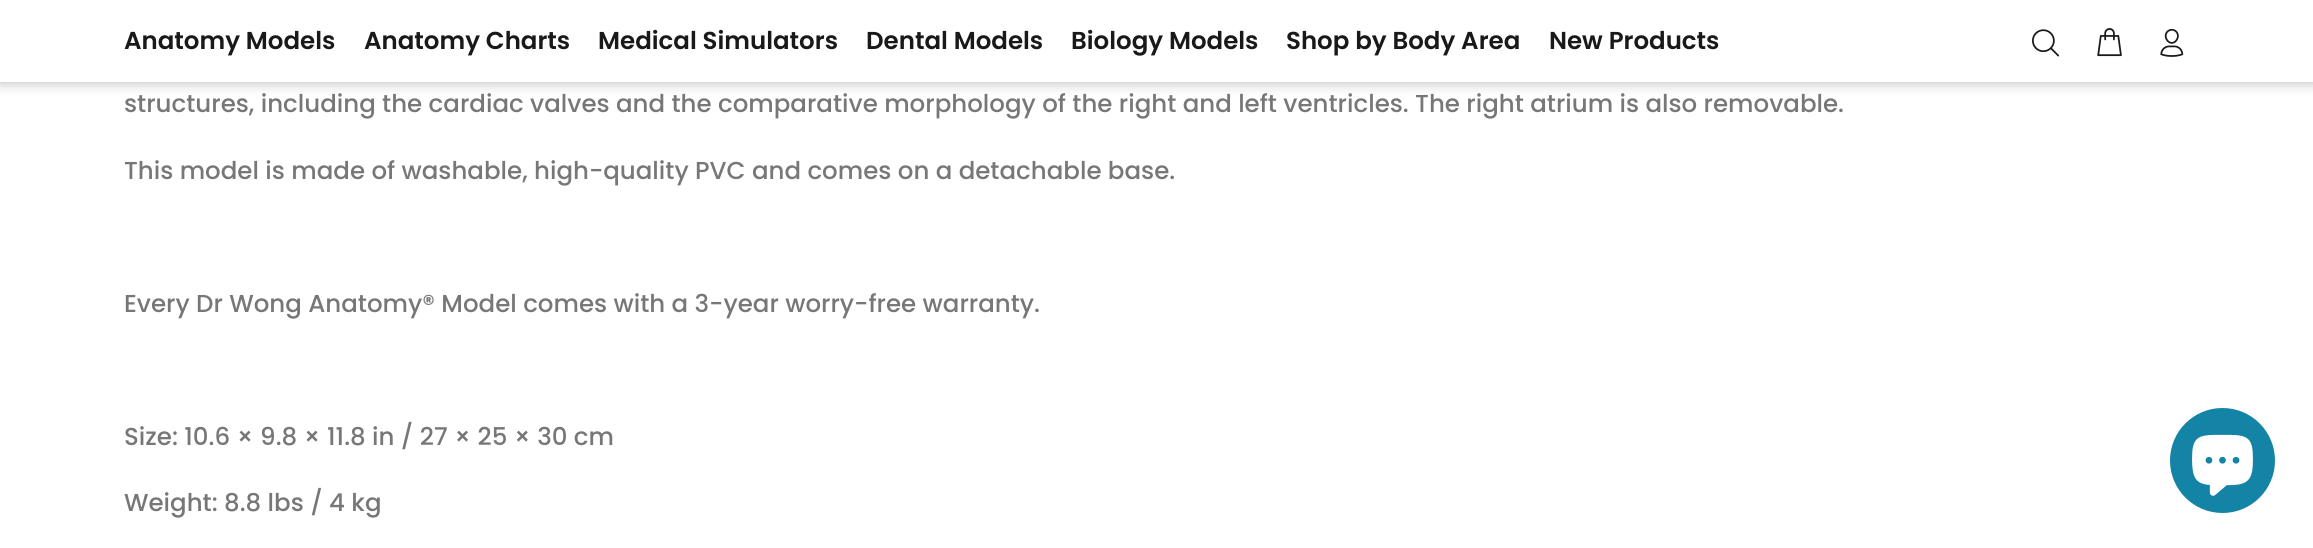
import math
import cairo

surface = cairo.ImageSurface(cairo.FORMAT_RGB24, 2313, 548)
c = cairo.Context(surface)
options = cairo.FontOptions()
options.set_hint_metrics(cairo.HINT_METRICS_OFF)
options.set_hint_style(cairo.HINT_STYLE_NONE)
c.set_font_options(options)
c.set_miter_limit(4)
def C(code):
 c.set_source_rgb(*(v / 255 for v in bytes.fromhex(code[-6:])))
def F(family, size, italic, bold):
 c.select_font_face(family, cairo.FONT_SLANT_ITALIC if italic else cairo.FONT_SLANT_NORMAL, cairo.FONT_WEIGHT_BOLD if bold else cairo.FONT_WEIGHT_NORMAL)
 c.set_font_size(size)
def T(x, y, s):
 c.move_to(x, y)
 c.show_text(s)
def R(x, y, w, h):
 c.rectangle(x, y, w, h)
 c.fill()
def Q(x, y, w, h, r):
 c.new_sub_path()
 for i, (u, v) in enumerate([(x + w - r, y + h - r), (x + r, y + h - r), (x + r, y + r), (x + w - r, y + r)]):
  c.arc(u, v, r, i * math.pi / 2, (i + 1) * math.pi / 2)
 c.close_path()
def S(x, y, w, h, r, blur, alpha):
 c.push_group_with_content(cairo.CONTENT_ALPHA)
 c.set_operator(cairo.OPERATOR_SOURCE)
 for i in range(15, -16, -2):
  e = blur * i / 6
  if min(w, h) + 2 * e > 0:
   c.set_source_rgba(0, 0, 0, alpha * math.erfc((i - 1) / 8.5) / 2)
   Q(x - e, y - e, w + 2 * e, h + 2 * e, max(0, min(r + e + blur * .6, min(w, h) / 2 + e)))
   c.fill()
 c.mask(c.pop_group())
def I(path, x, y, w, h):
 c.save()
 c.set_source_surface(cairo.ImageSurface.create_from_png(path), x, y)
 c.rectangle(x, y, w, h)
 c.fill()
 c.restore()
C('ffffff')
c.paint()
C('000000')
S(0,0,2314,82,0,7,.3)
C('ffffff')
R(0,0,2313,82)
F('Poppins SemiBold',24.5,0,0)
C('191919')
T(124,49,'Anatomy Models')
T(364,49,'Anatomy Charts')
T(598,49,'Medical Simulators')
T(866,49,'Dental Models')
T(1071,49,'Biology Models')
T(1286,49,'Shop by Body Area')
T(1549,49,'New Products')
I('1.png',2032,29,28,28)
I('2.png',2097,28,25,29)
I('3.png',2160,28,24,29)
F('Poppins Medium',24.5,0,0)
C('777777')
T(124,112,'structures, including the cardiac valves and the comparative morphology of the right and left ventricles. The right atrium is also removable.')
T(124,179,'This model is made of washable, high-quality PVC and comes on a detachable base.')
T(124,312,'Every Dr Wong Anatomy® Model comes with a 3-year worry-free warranty.')
T(124,445,'Size: 10.6 × 9.8 × 11.8 in / 27 × 25 × 30 cm')
T(124,511,'Weight: 8.8 lbs / 4 kg')
C('1383a6')
c.new_path()
c.arc(2222.5,460.5,52.5,0,2 * math.pi)
c.fill()
I('4.png',2192,434,61,62)
surface.write_to_png('o.png')
